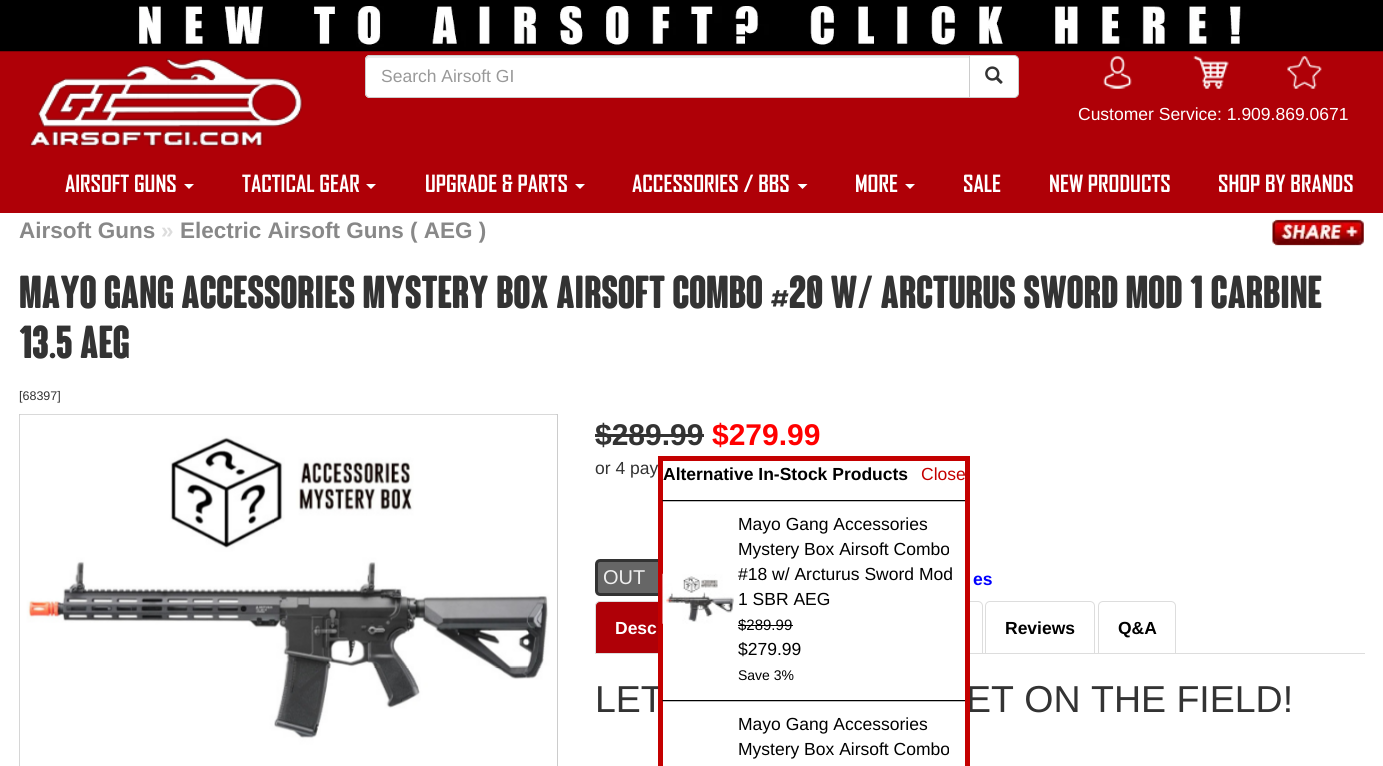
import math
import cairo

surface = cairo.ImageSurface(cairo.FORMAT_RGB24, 1383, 766)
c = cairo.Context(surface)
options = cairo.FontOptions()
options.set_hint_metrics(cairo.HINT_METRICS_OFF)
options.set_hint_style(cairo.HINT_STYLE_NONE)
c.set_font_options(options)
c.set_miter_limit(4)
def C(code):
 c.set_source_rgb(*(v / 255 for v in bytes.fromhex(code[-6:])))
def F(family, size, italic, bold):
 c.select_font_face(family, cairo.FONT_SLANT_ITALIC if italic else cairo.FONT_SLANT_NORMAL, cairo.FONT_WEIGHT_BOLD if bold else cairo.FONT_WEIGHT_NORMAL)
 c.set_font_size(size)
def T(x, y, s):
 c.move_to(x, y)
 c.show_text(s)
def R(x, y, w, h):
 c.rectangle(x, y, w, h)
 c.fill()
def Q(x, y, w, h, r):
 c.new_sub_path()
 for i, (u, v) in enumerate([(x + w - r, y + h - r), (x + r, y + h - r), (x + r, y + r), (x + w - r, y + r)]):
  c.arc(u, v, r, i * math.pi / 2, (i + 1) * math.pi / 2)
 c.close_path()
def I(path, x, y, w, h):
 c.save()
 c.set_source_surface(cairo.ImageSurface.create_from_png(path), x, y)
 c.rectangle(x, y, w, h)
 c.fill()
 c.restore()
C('ffffff')
c.paint()
C('af0007')
R(0,51,1383,162)
I('1.png',0,0,1383,52)
I('2.png',29,58,274,89)
C('ffffff')
c.new_path()
c.move_to(370,55)
c.line_to(970,55)
c.line_to(970,98)
c.line_to(370,98)
c.curve_to(367,98,365,96,365,93)
c.line_to(365,60)
c.curve_to(365,57,367,55,370,55)
c.close_path()
c.fill()
C('ececec')
c.new_path()
c.move_to(370,58)
c.line_to(969,58)
c.line_to(969,56)
c.line_to(370,56)
c.curve_to(367,56,366,58,366,61)
c.curve_to(366,59,368,58,370,58)
c.close_path()
c.fill()
c.new_path()
c.move_to(370,55.5)
c.line_to(969.5,55.5)
c.line_to(969.5,97.5)
c.line_to(370,97.5)
c.curve_to(367.5,97.5,365.5,95.5,365.5,93)
c.line_to(365.5,60)
c.curve_to(365.5,57.5,367.5,55.5,370,55.5)
c.close_path()
C('cccccc')
c.set_line_width(1)
c.stroke()
F('Liberation Sans',17.5,0,0)
C('999999')
T(381,82,'Search Airsoft GI')
C('ffffff')
c.new_path()
c.move_to(969.5,55.5)
c.line_to(1014,55.5)
c.curve_to(1016.5,55.5,1018.5,57.5,1018.5,60)
c.line_to(1018.5,93)
c.curve_to(1018.5,95.5,1016.5,97.5,1014,97.5)
c.line_to(969.5,97.5)
c.close_path()
c.fill_preserve()
C('cccccc')
c.stroke()
I('3.png',985,66,18,18)
I('4.png',1103,56,29,33)
I('5.png',1193,56,36,33)
I('6.png',1287,56,35,33)
C('ffffff')
T(1078,120,'Customer Service: 1.909.869.0671')
F('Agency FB',22.75,0,1)
T(65,192,'AIRSOFT GUNS')
c.new_path()
c.move_to(184,184)
c.line_to(194,184)
c.line_to(189,189)
c.close_path()
c.fill()
T(242,192,'TACTICAL GEAR')
c.new_path()
c.move_to(366,184)
c.line_to(376,184)
c.line_to(371,189)
c.close_path()
c.fill()
T(425,192,'UPGRADE & PARTS')
c.new_path()
c.move_to(575,184)
c.line_to(585,184)
c.line_to(580,189)
c.close_path()
c.fill()
T(632,192,'ACCESSORIES / BBS')
c.new_path()
c.move_to(797.5,184)
c.line_to(807.5,184)
c.line_to(802.5,189)
c.close_path()
c.fill()
T(855,192,'MORE')
c.new_path()
c.move_to(905,184)
c.line_to(915,184)
c.line_to(910,189)
c.close_path()
c.fill()
T(963,192,'SALE')
T(1049,192,'NEW PRODUCTS')
T(1218,192,'SHOP BY BRANDS')
F('Liberation Sans',22.5,0,1)
C('888888')
T(19,238,'Airsoft Guns')
C('dddddd')
T(161,238,'»')
C('888888')
T(180,238,'Electric Airsoft Guns ( AEG )')
I('7.png',1272,219,92,27)
F('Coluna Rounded',45,0,1)
C('333333')
T(19,308,'Mayo Gang Accessories Mystery Box Airsoft Combo #20 w/ Arcturus Sword Mod 1 Carbine')
T(19,358,'13.5 AEG')
F('Liberation Sans',12.5,0,0)
T(19,400,'[68397]')
c.rectangle(19.5,414.5,538,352)
C('cccccc')
c.stroke()
I('8.png',19,414,538,352)
F('Liberation Sans',30,0,1)
C('333333')
T(595,445,'$289.99')
R(595,434,109,3)
C('ff0000')
T(712,445,'$279.99')
C('666666')
Q(596.5,560.5,162,34,3.5)
c.fill_preserve()
C('333333')
c.set_line_width(3)
c.stroke()
C('af0007')
c.new_path()
c.move_to(600,601.5)
c.line_to(726,601.5)
c.curve_to(728.5,601.5,730.5,603.5,730.5,606)
c.line_to(730.5,653.5)
c.line_to(595.5,653.5)
c.line_to(595.5,606)
c.curve_to(595.5,603.5,597.5,601.5,600,601.5)
c.close_path()
c.fill_preserve()
C('dddddd')
c.set_line_width(1)
c.stroke()
c.new_path()
c.move_to(890,601.5)
c.line_to(978,601.5)
c.curve_to(980.5,601.5,982.5,603.5,982.5,606)
c.line_to(982.5,653.5)
c.line_to(885.5,653.5)
c.line_to(885.5,606)
c.curve_to(885.5,603.5,887.5,601.5,890,601.5)
c.close_path()
c.stroke()
F('Liberation Sans',37.5,0,0)
C('333333')
T(595,712,'LET')
C('ffffff')
R(663,559,302,130)
F('Liberation Sans',17.5,0,0)
C('333333')
T(595,474,'or 4 pay')
F('Liberation Sans',37.5,0,0)
T(966,712,'ET ON THE FIELD!')
c.rectangle(660.5,458.5,307,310)
C('c40000')
c.set_line_width(5)
c.stroke()
F('Liberation Sans',17.5,0,1)
C('000000')
T(663,480,'Alternative In-Stock Products')
F('Liberation Sans',17.5,0,0)
C('c40000')
T(921,480,'Close')
I('9.png',662,500,303,2)
I('10.png',662,573,72,51)
C('000000')
T(738,530,'Mayo Gang Accessories')
T(738,555,'Mystery Box Airsoft Combo')
T(738,580,'#18 w/ Arcturus Sword Mod')
T(738,605,'1 SBR AEG')
F('Liberation Sans',15,0,0)
T(738,630,'$289.99')
R(738,625,55,1)
F('Liberation Sans',17.5,0,0)
T(738,655,'$279.99')
F('Liberation Sans',14,0,0)
T(738,680,'Save 3%')
I('9.png',662,700,303,2)
F('Liberation Sans',17.5,0,0)
T(738,730,'Mayo Gang Accessories')
T(738,755,'Mystery Box Airsoft Combo')
F('Liberation Sans',20,0,0)
C('eeeeee')
T(603,584,'OUT')
F('Liberation Sans',17.5,0,1)
C('0000ff')
T(973,585,'es')
C('dddddd')
R(983,653,382,1)
C('ffffff')
T(615,634,'Desc')
c.new_path()
c.move_to(990,601.5)
c.line_to(1090,601.5)
c.curve_to(1092.5,601.5,1094.5,603.5,1094.5,606)
c.line_to(1094.5,653.5)
c.line_to(985.5,653.5)
c.line_to(985.5,606)
c.curve_to(985.5,603.5,987.5,601.5,990,601.5)
c.close_path()
C('dddddd')
c.set_line_width(1)
c.stroke()
C('000000')
T(1005,634,'Reviews')
c.new_path()
c.move_to(1103,601.5)
c.line_to(1171,601.5)
c.curve_to(1173.5,601.5,1175.5,603.5,1175.5,606)
c.line_to(1175.5,653.5)
c.line_to(1098.5,653.5)
c.line_to(1098.5,606)
c.curve_to(1098.5,603.5,1100.5,601.5,1103,601.5)
c.close_path()
C('dddddd')
c.stroke()
C('000000')
T(1118,634,'Q&A')
surface.write_to_png('o.png')
